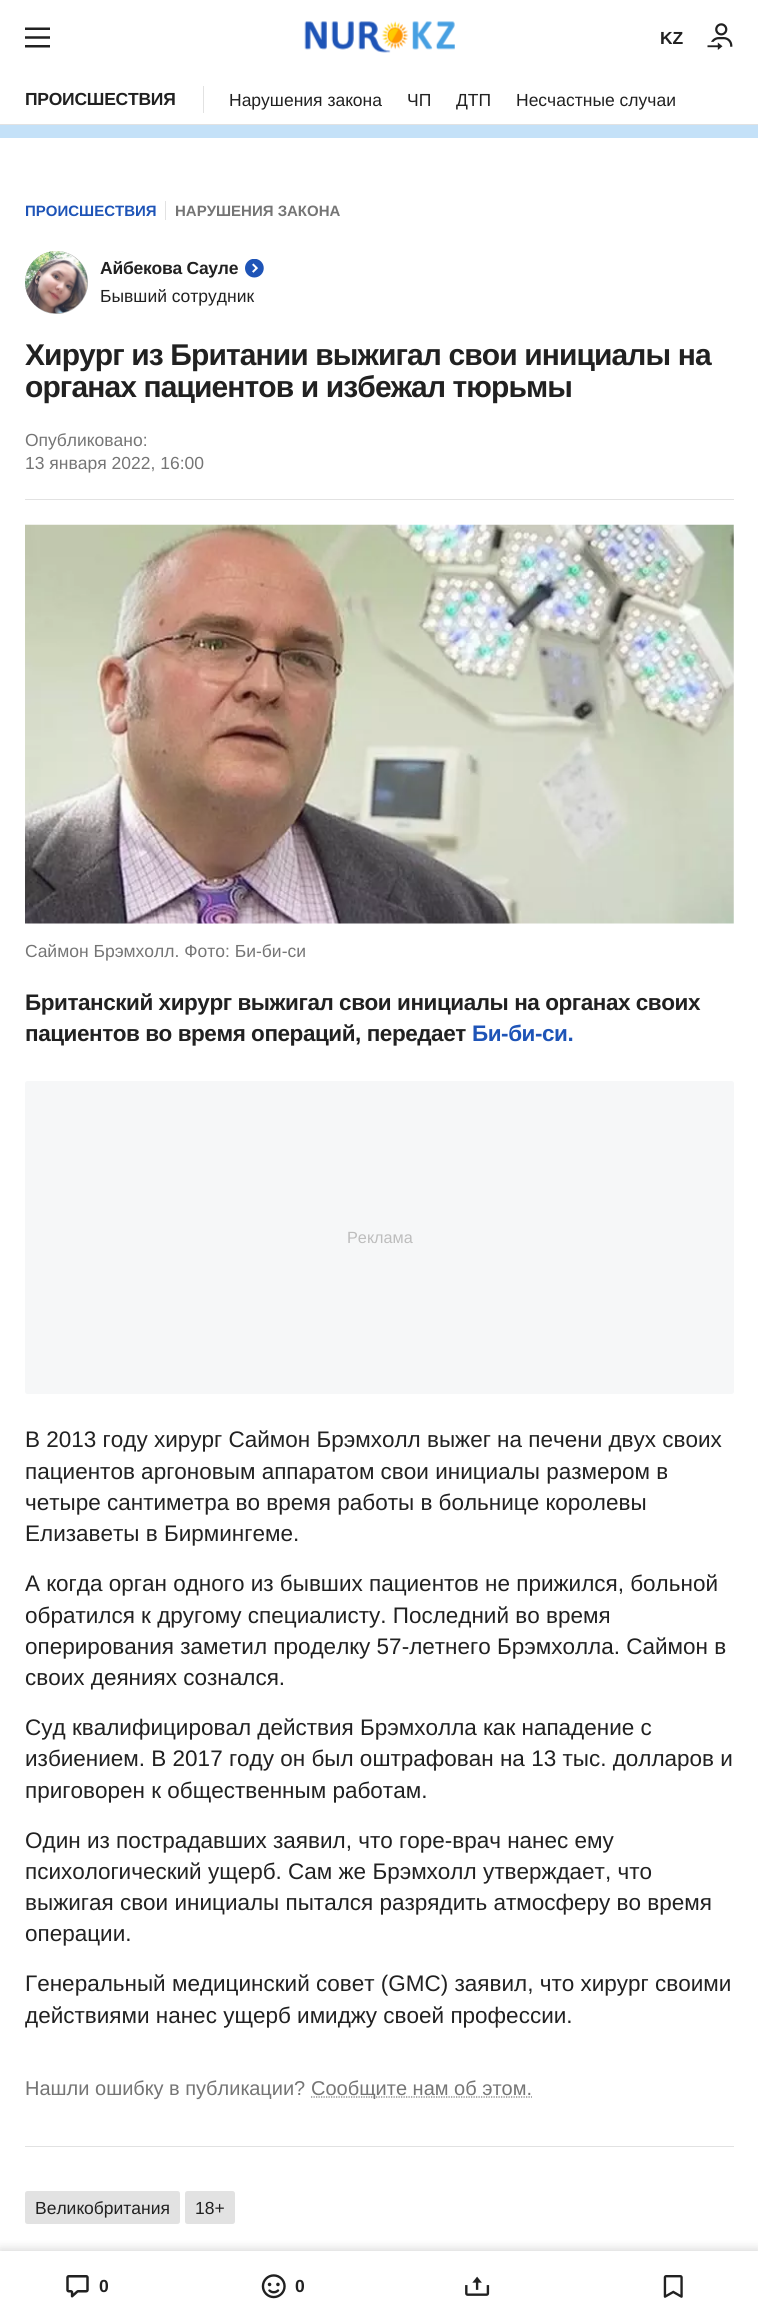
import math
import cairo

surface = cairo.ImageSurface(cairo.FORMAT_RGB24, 758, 2321)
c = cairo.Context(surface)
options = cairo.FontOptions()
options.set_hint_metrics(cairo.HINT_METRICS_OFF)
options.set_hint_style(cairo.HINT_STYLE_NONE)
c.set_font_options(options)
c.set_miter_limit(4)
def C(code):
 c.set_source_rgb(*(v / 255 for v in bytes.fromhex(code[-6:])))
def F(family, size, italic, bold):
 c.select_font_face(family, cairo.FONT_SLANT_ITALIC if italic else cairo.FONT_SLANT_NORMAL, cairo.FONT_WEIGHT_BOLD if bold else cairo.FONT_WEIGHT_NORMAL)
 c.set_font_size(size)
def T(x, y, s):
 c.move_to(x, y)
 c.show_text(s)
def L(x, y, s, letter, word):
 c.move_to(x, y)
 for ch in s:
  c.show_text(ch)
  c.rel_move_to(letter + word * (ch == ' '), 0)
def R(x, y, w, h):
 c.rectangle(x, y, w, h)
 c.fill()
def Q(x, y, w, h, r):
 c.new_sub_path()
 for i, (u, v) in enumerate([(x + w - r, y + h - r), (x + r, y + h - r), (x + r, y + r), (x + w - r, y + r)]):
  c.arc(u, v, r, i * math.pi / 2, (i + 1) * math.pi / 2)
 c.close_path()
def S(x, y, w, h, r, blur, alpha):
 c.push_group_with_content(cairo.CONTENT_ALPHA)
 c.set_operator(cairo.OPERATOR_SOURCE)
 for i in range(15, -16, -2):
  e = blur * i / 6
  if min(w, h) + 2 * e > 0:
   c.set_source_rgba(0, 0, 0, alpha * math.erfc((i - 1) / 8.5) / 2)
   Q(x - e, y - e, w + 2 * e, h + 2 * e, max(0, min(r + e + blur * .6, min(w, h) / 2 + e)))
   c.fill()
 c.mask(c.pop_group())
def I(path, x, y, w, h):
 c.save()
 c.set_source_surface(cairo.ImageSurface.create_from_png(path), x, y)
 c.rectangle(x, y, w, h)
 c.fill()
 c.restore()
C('ffffff')
c.paint()
I('1.png',25,27,25,21)
I('2.png',304,21,151,32)
F('Liberation Sans',17.5,0,1)
C('212121')
L(660,44,'KZ',-.25,0)
I('3.png',707,23,26,27)
C('e2e2e2')
R(0,124,758,1)
C('212121')
L(25,105,'ПРОИСШЕСТВИЯ',-.25,0)
C('e2e2e2')
R(203,86,1,27)
F('Liberation Sans',17.5,0,0)
C('212121')
T(229,106,'Нарушения закона')
T(407,106,'ЧП')
T(456,106,'ДТП')
T(516,106,'Несчастные случаи')
C('c4e1f8')
R(0,125,758,13)
F('Liberation Sans',15,0,1)
C('1e54b7')
T(25,216,'ПРОИСШЕСТВИЯ')
C('e2e2e2')
R(165,201,1,19)
C('757575')
T(175,216,'НАРУШЕНИЯ ЗАКОНА')
C('afafaf')
c.new_path()
c.arc(56.5,282.5,31.5,0,2 * math.pi)
c.fill()
I('4.png',25,251,63,63)
F('Liberation Sans',17.5,0,1)
C('212121')
L(100,274,'Айбекова Сауле',-.25,0)
I('5.png',245,259,19,19)
F('Liberation Sans',17.5,0,0)
T(100,302,'Бывший сотрудник')
F('Liberation Sans',30,0,1)
L(25,365,'Хирург из Британии выжигал свои инициалы на',-.9,0)
L(25,397,'органах пациентов и избежал тюрьмы',-.9,0)
C('e2e2e2')
R(25,499,709,1)
F('Liberation Sans',17.5,0,0)
C('757575')
T(25,446,'Опубликовано:')
T(25,469,'13 января 2022, 16:00')
I('6.png',25,524,709,400)
T(25,957,'Саймон Брэмхолл. Фото: Би-би-си')
F('Liberation Sans',22.5,0,1)
C('212121')
L(25,1010,'Британский хирург выжигал свои инициалы на органах своих',-.45,0)
L(25,1041,'пациентов во время операций, передает',-.45,0)
C('1e54b7')
L(472,1041,'Би-би-си.',-.45,0)
C('f6f7f8')
Q(25,1081,709,313,2.5)
c.fill()
F('Liberation Sans',16.25,0,0)
C('bdbdbd')
T(347,1243,'Реклама')
F('Liberation Sans',22.5,0,0)
C('212121')
T(25,1447,'В 2013 году хирург Саймон Брэмхолл выжег на печени двух своих')
T(25,1479,'пациентов аргоновым аппаратом свои инициалы размером в')
T(25,1510,'четыре сантиметра во время работы в больнице королевы')
T(25,1541,'Елизаветы в Бирмингеме.')
T(25,1591,'А когда орган одного из бывших пациентов не прижился, больной')
T(25,1623,'обратился к другому специалисту. Последний во время')
T(25,1654,'оперирования заметил проделку 57-летнего Брэмхолла. Саймон в')
T(25,1685,'своих деяниях сознался.')
T(25,1735,'Суд квалифицировал действия Брэмхолла как нападение с')
T(25,1766,'избиением. В 2017 году он был оштрафован на 13 тыс. долларов и')
T(25,1798,'приговорен к общественным работам.')
T(25,1848,'Один из пострадавших заявил, что горе-врач нанес ему')
T(25,1879,'психологический ущерб. Сам же Брэмхолл утверждает, что')
T(25,1910,'выжигая свои инициалы пытался разрядить атмосферу во время')
T(25,1941,'операции.')
T(25,1991,'Генеральный медицинский совет (GMC) заявил, что хирург своими')
T(25,2023,'действиями нанес ущерб имиджу своей профессии.')
F('Liberation Sans',20,0,0)
C('757575')
T(25,2095,'Нашли ошибку в публикации?')
c.new_path()
c.move_to(311,2097)
c.line_to(532,2097)
c.set_line_width(1.2)
c.set_dash([1.25,1.25])
c.stroke()
T(311,2095,'Сообщите нам об этом.')
C('e2e2e2')
R(25,2146,709,1)
Q(25,2191,155,33,2.5)
c.fill()
F('Liberation Sans',17.5,0,0)
C('212121')
T(35,2214,'Великобритания')
C('e2e2e2')
Q(185,2191,50,33,2.5)
c.fill()
C('212121')
T(195,2214,'18+')
C('000000')
S(0,2249,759,70,0,5,.15)
C('ffffff')
R(0,2251,758,70)
I('7.png',66,2275,23,23)
F('Liberation Sans',17.5,0,1)
C('212121')
L(99,2292,'0',-.25,0)
I('8.png',261,2274,25,25)
L(295,2292,'0',-.25,0)
I('9.png',465,2276,25,20)
I('10.png',663,2275,20,23)
surface.write_to_png('o.png')
